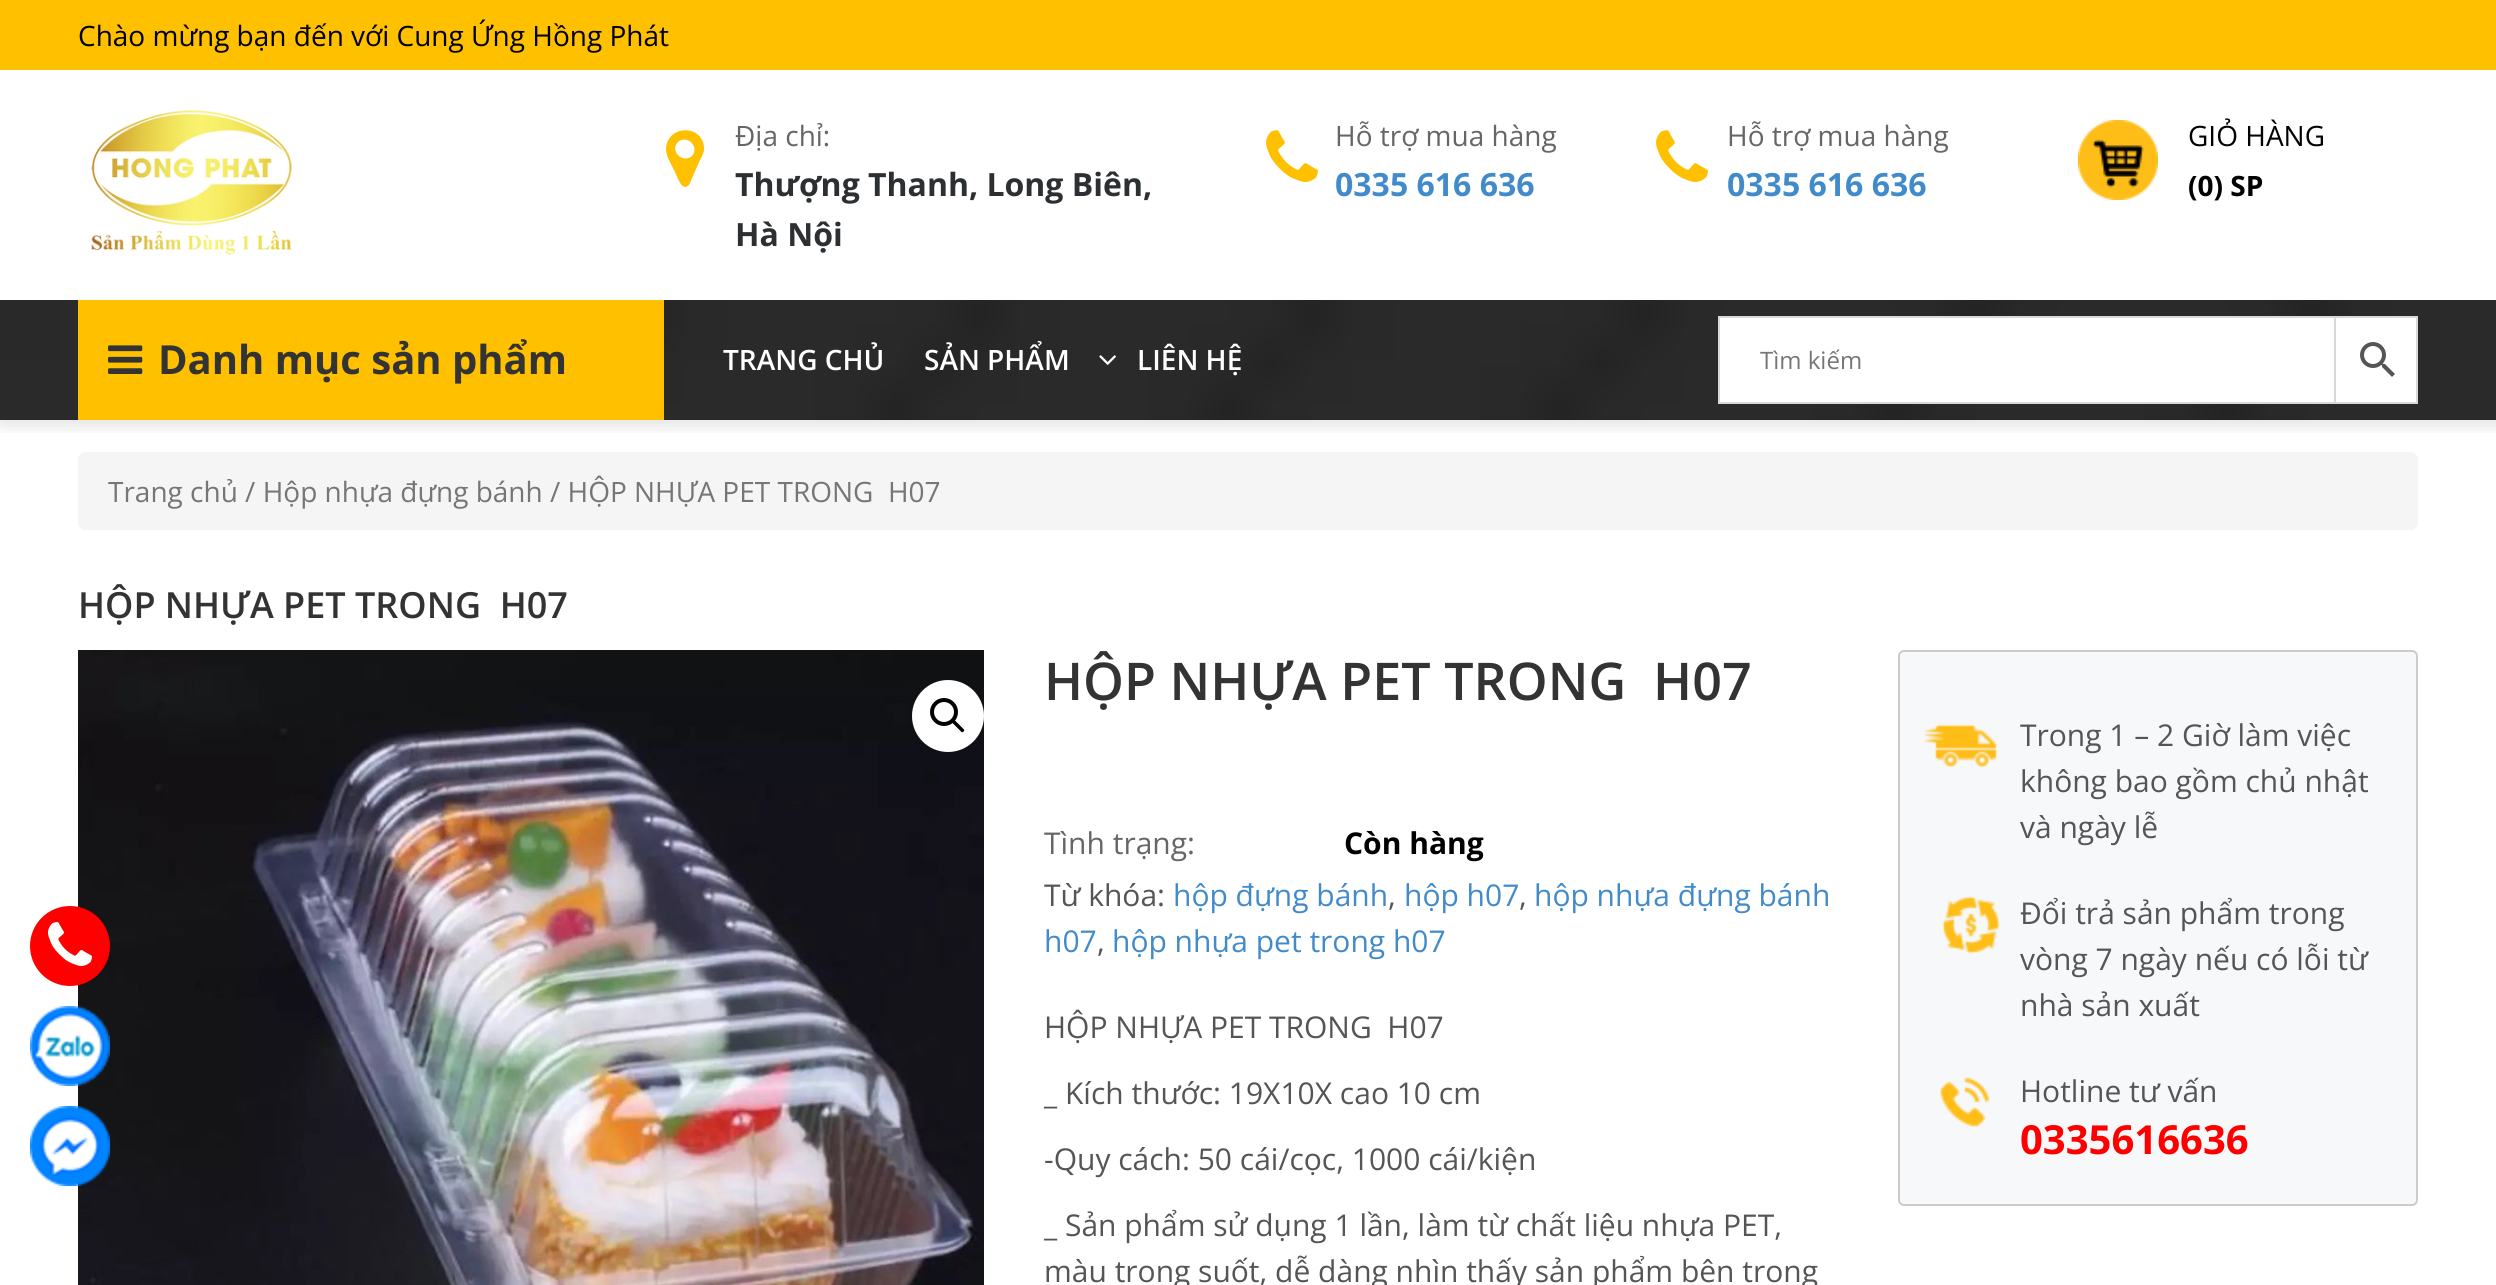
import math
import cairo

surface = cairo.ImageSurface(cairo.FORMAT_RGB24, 2496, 1285)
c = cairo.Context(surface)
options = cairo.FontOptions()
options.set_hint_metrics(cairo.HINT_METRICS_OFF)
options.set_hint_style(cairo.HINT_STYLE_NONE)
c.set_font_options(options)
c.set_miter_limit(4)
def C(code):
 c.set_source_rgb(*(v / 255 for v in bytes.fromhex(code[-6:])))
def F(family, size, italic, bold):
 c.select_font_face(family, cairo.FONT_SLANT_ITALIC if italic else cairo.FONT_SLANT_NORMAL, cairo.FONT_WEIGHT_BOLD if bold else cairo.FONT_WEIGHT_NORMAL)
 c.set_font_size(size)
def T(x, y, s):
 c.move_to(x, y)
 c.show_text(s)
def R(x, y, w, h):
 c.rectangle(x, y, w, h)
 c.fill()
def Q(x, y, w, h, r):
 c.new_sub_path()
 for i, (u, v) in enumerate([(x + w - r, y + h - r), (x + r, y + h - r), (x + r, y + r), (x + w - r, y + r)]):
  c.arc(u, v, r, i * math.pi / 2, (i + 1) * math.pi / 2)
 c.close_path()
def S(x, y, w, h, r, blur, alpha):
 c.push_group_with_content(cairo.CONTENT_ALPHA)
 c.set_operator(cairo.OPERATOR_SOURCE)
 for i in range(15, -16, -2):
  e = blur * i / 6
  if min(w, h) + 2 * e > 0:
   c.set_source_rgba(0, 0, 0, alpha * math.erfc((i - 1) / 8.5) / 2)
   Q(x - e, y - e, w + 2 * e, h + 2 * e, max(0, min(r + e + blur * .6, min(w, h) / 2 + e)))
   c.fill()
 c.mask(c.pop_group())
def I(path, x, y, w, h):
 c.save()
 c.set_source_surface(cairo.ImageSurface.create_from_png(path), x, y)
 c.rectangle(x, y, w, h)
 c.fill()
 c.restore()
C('ffffff')
c.paint()
C('f5f5f5')
Q(78,452,2340,78,8)
c.fill()
c.save()
c.rectangle(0,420,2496,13)
c.clip()
C('000000')
S(2,2,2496,420,0,10,.16)
c.restore()
C('ffc000')
R(0,0,2496,70)
F('Open Sans',28,0,0)
C('000000')
T(78,46,'Chào mừng bạn đến với Cung Ứng Hồng Phát')
I('1.png',91,110,202,145)
C('ffc000')
c.new_path()
c.move_to(692,156)
c.curve_to(700,147,687,134,678,142)
c.curve_to(669,151,683,164,692,156)
c.close_path()
c.move_to(704,149)
c.curve_to(704,153,702,156,700,160)
c.line_to(689,185)
c.line_to(686,187)
c.curve_to(681,187,680,182,678,179)
c.line_to(674,170)
c.curve_to(671,164,666,156,666,149)
c.curve_to(667,124,704,124,704,149)
c.close_path()
c.fill()
C('666666')
T(735,146,'Địa chỉ:')
F('Open Sans',32,0,1)
C('2d3032')
T(735,196,'Thượng Thanh, Long Biên,')
T(735,246,'Hà Nội')
I('2.png',1266,130,52,52)
F('Open Sans',28,0,0)
C('666666')
T(1335,146,'Hỗ trợ mua hàng')
F('Open Sans',32,0,1)
C('428bca')
T(1335,196,'0335 616 636')
I('2.png',1656,130,52,52)
F('Open Sans',28,0,0)
C('666666')
T(1727,146,'Hỗ trợ mua hàng')
F('Open Sans',32,0,1)
C('428bca')
T(1727,196,'0335 616 636')
I('3.png',2078,120,80,80)
F('Open Sans',28,0,0)
C('000000')
T(2188,146,'GIỎ HÀNG')
F('Open Sans',28,0,1)
T(2188,196,'(0) SP')
I('4.png',0,300,2496,120)
C('ffc000')
R(78,300,586,120)
I('5.png',108,345,35,29)
F('Open Sans',40,0,1)
C('333333')
T(158,374,'Danh mục sản phẩm')
F('Open Sans SemiBold',28,0,0)
C('ffffff')
T(723,370,'TRANG CHỦ')
T(924,370,'SẢN PHẨM')
I('6.png',1099,355,17,10)
T(1137,370,'LIÊN HỆ')
c.rectangle(2335,317,82,86)
c.fill_preserve()
C('d8d8d8')
c.stroke()
C('ffffff')
c.rectangle(1719,317,616,86)
c.fill_preserve()
C('d8d8d8')
c.stroke()
F('Open Sans',24,0,0)
C('767676')
T(1760,369,'Tìm kiếm')
I('7.png',2360,342,35,35)
I('11.png',78,650,906,635)
C('ff0000')
c.arc(70,946,40,0,2 * math.pi)
c.fill()
I('8.png',48,922,44,44)
I('9.png',30,1006,80,80)
I('10.png',30,1106,80,80)
F('Open Sans',28,0,0)
C('767676')
T(108,502,'Trang chủ / Hộp nhựa đựng bánh / HỘP NHỰA PET TRONG  H07')
F('Open Sans SemiBold',36,0,0)
C('333333')
T(78,618,'HỘP NHỰA PET TRONG  H07')
C('ffffff')
c.new_path()
c.arc(948,716,36,0,2 * math.pi)
c.fill()
c.arc(944,712,12,0,2 * math.pi)
C('000000')
c.set_line_width(4)
c.stroke()
c.new_path()
c.move_to(952.5,720.5)
c.curve_to(953,719.5,954.5,719.5,955,720.5)
c.line_to(963.5,729)
c.curve_to(964.5,729.5,964.5,731,963.5,731.5)
c.curve_to(963,732.5,961.5,732.5,961,731.5)
c.line_to(952.5,723)
c.curve_to(951.5,722.5,951.5,721,952.5,720.5)
c.close_path()
c.fill()
F('Open Sans SemiBold',52,0,0)
C('333333')
T(1044,700,'HỘP NHỰA PET TRONG  H07')
F('Open Sans',30,0,0)
C('666666')
T(1044,854,'Tình trạng:')
F('Open Sans',30,0,1)
C('000000')
T(1344,854,'Còn hàng')
F('Open Sans',30,0,0)
C('555555')
T(1044,906,'Từ khóa:')
C('428bca')
T(1173,906,'hộp đựng bánh')
C('555555')
T(1388,906,',')
C('428bca')
T(1404,906,'hộp h07')
C('555555')
T(1519,906,',')
C('428bca')
T(1534,906,'hộp nhựa đựng bánh')
T(1044,952,'h07')
C('555555')
T(1097,952,',')
C('428bca')
T(1112,952,'hộp nhựa pet trong h07')
C('555555')
T(1044,1038,'HỘP NHỰA PET TRONG  H07')
T(1044,1104,'_ Kích thước: 19X10X cao 10 cm')
T(1044,1170,'-Quy cách: 50 cái/cọc, 1000 cái/kiện')
T(1044,1236,'_ Sản phẩm sử dụng 1 lần, làm từ chất liệu nhựa PET,')
T(1044,1282,'màu trong suốt, dễ dàng nhìn thấy sản phẩm bên trong')
C('f7f8f9')
Q(1899,651,518,554,5)
c.fill_preserve()
C('cccccc')
c.set_line_width(2)
c.stroke()
I('12.png',1923,723,74,45)
C('555555')
T(2020,746,'Trong 1 – 2 Giờ làm việc')
T(2020,792,'không bao gồm chủ nhật')
T(2020,838,'và ngày lễ')
I('13.png',1941,895,59,60)
T(2020,924,'Đổi trả sản phẩm trong')
T(2020,970,'vòng 7 ngày nếu có lỗi từ')
T(2020,1016,'nhà sản xuất')
I('14.png',1940,1077,50,50)
T(2020,1102,'Hotline tư vấn')
F('Open Sans',40,0,1)
C('ff0000')
T(2020,1154,'0335616636')
surface.write_to_png('o.png')
